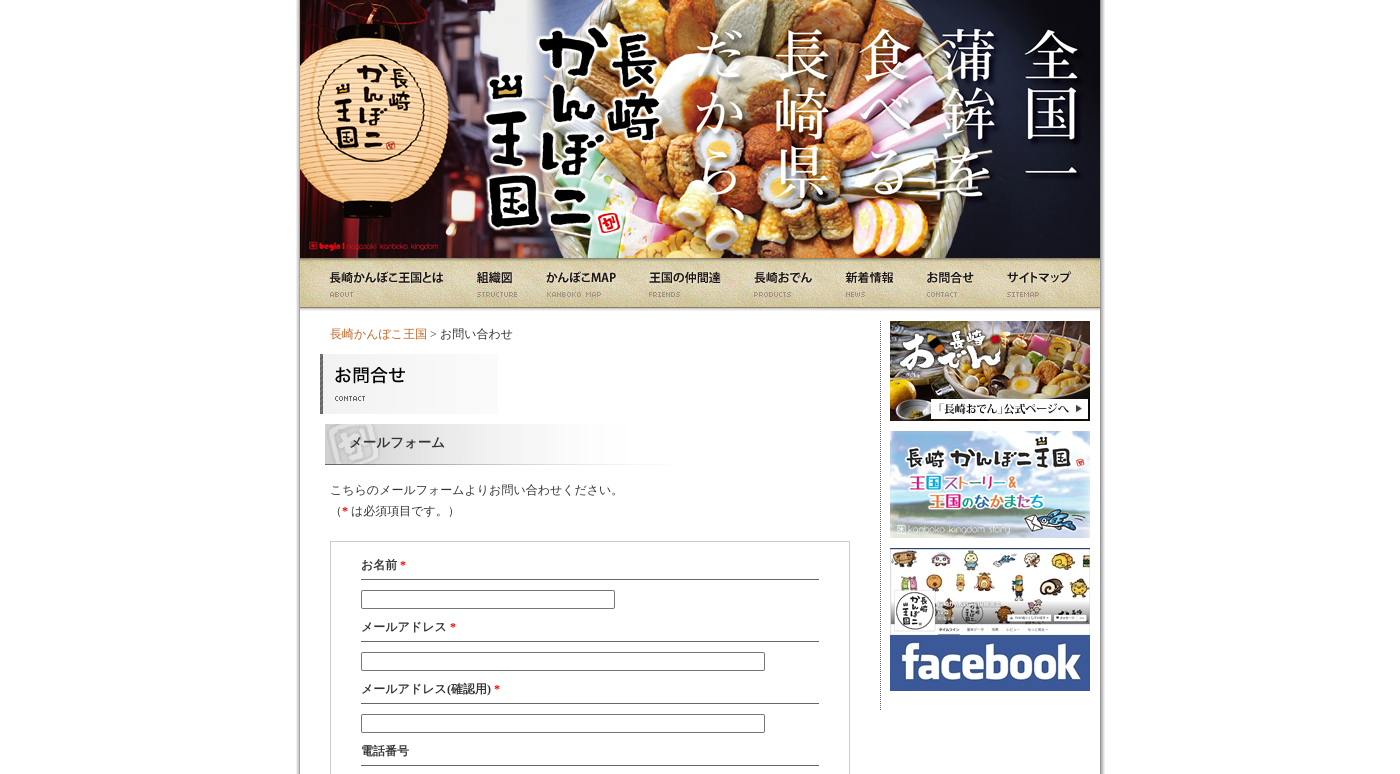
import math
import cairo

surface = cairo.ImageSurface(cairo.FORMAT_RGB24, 1400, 774)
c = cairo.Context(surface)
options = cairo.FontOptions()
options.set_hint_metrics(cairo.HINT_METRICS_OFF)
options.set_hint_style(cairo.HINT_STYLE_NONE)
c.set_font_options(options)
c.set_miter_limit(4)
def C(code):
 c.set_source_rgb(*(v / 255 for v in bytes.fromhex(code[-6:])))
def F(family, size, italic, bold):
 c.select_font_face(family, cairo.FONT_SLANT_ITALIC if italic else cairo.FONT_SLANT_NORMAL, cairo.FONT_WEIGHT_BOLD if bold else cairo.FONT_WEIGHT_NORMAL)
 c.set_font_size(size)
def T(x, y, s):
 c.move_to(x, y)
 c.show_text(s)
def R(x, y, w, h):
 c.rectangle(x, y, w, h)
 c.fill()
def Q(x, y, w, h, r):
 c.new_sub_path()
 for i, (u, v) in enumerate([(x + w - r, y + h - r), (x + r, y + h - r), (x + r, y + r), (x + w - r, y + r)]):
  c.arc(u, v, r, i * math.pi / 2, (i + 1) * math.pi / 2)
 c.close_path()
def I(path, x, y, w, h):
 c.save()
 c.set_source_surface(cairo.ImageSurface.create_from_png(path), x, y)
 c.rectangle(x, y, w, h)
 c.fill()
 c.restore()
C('ffffff')
c.paint()
I('1.png',296,0,809,774)
I('2.png',300,0,800,258)
I('3.png',300,258,165,53)
I('4.png',465,258,64,53)
I('5.png',529,258,103,53)
I('6.png',632,258,106,53)
I('7.png',738,258,90,53)
I('8.png',828,258,84,53)
I('9.png',912,258,80,53)
I('10.png',992,258,108,53)
F('WenQuanYi Zen Hei Medium',12,0,0)
C('c3631e')
T(330,338,'長崎かんぼこ王国')
F('Liberation Serif',12,0,0)
C('333333')
T(430,338,'>')
F('WenQuanYi Zen Hei Medium',12,0,0)
T(440,338,'お問い合わせ')
I('11.png',320,354,178,60)
I('12.png',325,424,344,41)
F('WenQuanYi Zen Hei',13.5,0,1)
T(349,447,'メールフォーム')
F('WenQuanYi Zen Hei Medium',12,0,0)
T(330,494,'こちらのメールフォームよりお問い合わせください。')
T(330,515,'（')
F('Liberation Serif',12,0,1)
C('ff0000')
T(342,515,'*')
F('WenQuanYi Zen Hei Medium',12,0,0)
C('333333')
T(351,515,'は必須項目です。）')
c.rectangle(330.5,541.5,519,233)
C('cccccc')
c.set_line_width(1)
c.stroke()
C('666666')
R(361,579,458,1)
F('WenQuanYi Zen Hei',12,0,1)
C('333333')
T(361,569,'お名前')
F('Liberation Serif',12,0,1)
C('ff0000')
T(400,569,'*')
Q(361.5,590.5,253,18,1.5)
C('767676')
c.stroke()
C('666666')
R(361,641,458,1)
F('WenQuanYi Zen Hei',12,0,1)
C('333333')
T(361,631,'メールアドレス')
F('Liberation Serif',12,0,1)
C('ff0000')
T(450,631,'*')
Q(361.5,652.5,403,18,1.5)
C('767676')
c.stroke()
C('666666')
R(361,703,458,1)
F('WenQuanYi Zen Hei',12,0,1)
C('333333')
T(361,693,'メールアドレス')
F('Liberation Serif',12,0,1)
T(447,693,'(')
F('WenQuanYi Zen Hei',12,0,1)
T(451,693,'確認用')
F('Liberation Serif',12,0,1)
T(487,693,')')
C('ff0000')
T(494,693,'*')
Q(361.5,714.5,403,18,1.5)
C('767676')
c.stroke()
C('666666')
R(361,765,458,1)
F('WenQuanYi Zen Hei',12,0,1)
C('333333')
T(361,755,'電話番号')
I('13.png',880,321,1,389)
I('14.png',890,321,200,100)
I('15.png',890,431,200,107)
I('16.png',890,548,200,143)
surface.write_to_png('o.png')
